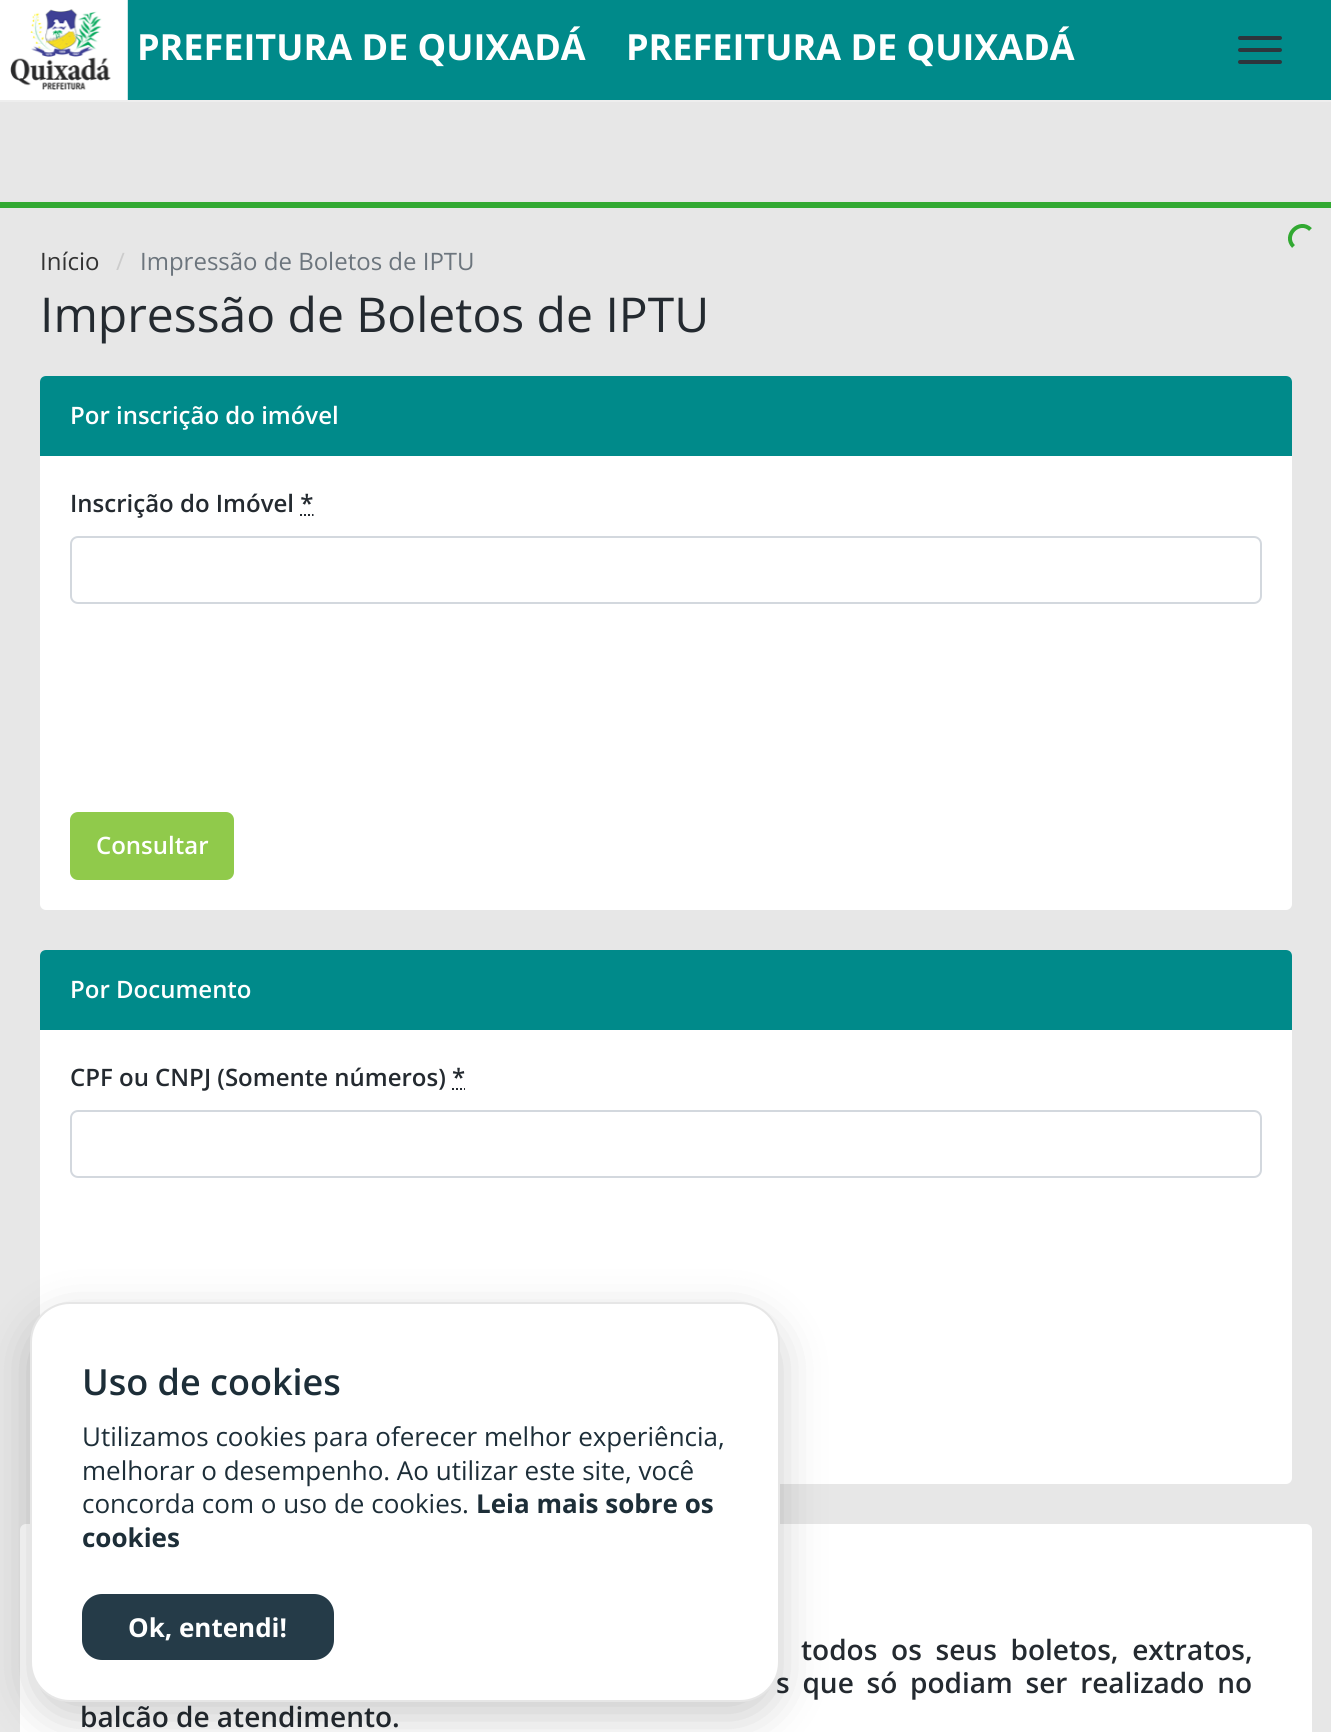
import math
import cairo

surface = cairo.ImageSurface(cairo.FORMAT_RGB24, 1331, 1732)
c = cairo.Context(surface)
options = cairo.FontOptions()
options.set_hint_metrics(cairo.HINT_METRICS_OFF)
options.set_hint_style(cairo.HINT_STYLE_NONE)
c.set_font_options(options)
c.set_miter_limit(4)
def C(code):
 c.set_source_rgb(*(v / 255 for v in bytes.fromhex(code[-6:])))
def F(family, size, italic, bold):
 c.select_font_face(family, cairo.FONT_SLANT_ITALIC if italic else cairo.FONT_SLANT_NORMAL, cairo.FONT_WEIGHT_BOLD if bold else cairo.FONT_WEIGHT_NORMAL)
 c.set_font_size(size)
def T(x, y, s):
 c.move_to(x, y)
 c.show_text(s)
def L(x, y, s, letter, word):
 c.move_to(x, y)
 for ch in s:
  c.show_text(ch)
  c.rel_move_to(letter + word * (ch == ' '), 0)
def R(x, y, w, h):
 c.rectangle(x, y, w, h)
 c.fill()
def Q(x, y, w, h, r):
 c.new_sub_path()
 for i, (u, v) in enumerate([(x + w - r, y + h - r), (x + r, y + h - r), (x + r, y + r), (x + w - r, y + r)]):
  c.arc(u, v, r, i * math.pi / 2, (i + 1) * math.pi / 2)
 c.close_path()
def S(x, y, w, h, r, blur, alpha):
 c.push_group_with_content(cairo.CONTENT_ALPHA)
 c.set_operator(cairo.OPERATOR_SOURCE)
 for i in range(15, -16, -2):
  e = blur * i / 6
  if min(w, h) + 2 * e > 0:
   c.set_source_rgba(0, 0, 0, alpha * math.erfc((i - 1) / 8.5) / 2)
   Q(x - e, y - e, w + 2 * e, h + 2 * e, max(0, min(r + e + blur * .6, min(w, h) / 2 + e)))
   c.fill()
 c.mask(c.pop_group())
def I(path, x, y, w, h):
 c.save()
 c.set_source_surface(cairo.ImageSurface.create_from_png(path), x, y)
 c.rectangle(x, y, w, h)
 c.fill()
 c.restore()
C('e7e7e7')
c.paint()
C('008a8a')
R(127,0,1204,100)
C('eeeeee')
R(0,100,1331,2)
I('1.png',0,0,128,100)
F('Open Sans',36,0,1)
C('ffffff')
T(137,60,'PREFEITURA DE QUIXADÁ')
T(626,60,'PREFEITURA DE QUIXADÁ')
C('2d353c')
Q(1238,36,44,4,2)
c.fill()
Q(1238,48,44,4,2)
c.fill()
Q(1238,60,44,4,2)
c.fill()
F('Open Sans',24,0,0)
C('333333')
T(40,270,'Início')
C('cccccc')
T(116,270,'/')
C('6c757d')
T(140,270,'Impressão de Boletos de IPTU')
F('Open Sans',48,0,0)
C('242a30')
T(40,332,'Impressão de Boletos de IPTU')
C('ffffff')
Q(40,376,1252,534,6)
c.fill()
C('008a8a')
c.new_path()
c.move_to(46,376)
c.line_to(1286,376)
c.curve_to(1289.5,376,1292,378.5,1292,382)
c.line_to(1292,456)
c.line_to(40,456)
c.line_to(40,382)
c.curve_to(40,378.5,42.5,376,46,376)
c.close_path()
c.fill()
F('Open Sans SemiBold',24,0,0)
C('ffffff')
T(70,424,'Por inscrição do imóvel')
C('242a30')
T(70,512,'Inscrição do Imóvel *')
c.new_path()
c.move_to(300,515)
c.line_to(302,515)
c.move_to(304,515)
c.line_to(306,515)
c.move_to(308,515)
c.line_to(310,515)
c.move_to(312,515)
c.line_to(313.5,515)
c.stroke()
Q(71,537,1190,66,7)
C('d3d8de')
c.stroke()
C('90ca4b')
Q(71,813,162,66,7)
c.fill_preserve()
c.stroke()
C('ffffff')
T(96,854,'Consultar')
Q(40,950,1252,534,6)
c.fill()
C('008a8a')
c.new_path()
c.move_to(46,950)
c.line_to(1286,950)
c.curve_to(1289.5,950,1292,952.5,1292,956)
c.line_to(1292,1030)
c.line_to(40,1030)
c.line_to(40,956)
c.curve_to(40,952.5,42.5,950,46,950)
c.close_path()
c.fill()
C('ffffff')
T(70,998,'Por Documento')
C('242a30')
T(70,1086,'CPF ou CNPJ (Somente números) *')
c.new_path()
c.move_to(452,1089)
c.line_to(454,1089)
c.move_to(456,1089)
c.line_to(458,1089)
c.move_to(460,1089)
c.line_to(462,1089)
c.move_to(464,1089)
c.line_to(465,1089)
c.stroke()
Q(71,1111,1190,66,7)
C('d3d8de')
c.stroke()
C('ffffff')
Q(20,1524,1292,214,6)
c.fill()
F('Open Sans SemiBold',28,0,0)
C('242a30')
L(801,1660,'todos os seus boletos, extratos,',0,6.5)
L(776,1693,'s que só podiam ser realizado no',0,5.5)
T(80,1727,'balcão de atendimento.')
C('32a932')
R(0,202,1331,6)
c.new_path()
c.move_to(1293.5,246.5)
c.curve_to(1282.5,235.5,1299.5,218.5,1310.5,229.5)
c.set_line_width(4)
c.stroke()
C('020203')
S(30,1318,750,400,40,22.5,.2)
C('ffffff')
Q(31,1303,748,398,39)
c.fill_preserve()
C('e6e6e6')
c.set_line_width(2)
c.stroke()
F('Open Sans SemiBold',36,0,0)
C('1d2e38')
T(82,1395,'Uso de cookies')
F('Open Sans',26,0,0)
T(82,1446,'Utilizamos cookies para oferecer melhor experiência,')
T(82,1480,'melhorar o desempenho. Ao utilizar este site, você')
T(82,1513,'concorda com o uso de cookies.')
F('Open Sans',26,0,1)
T(476,1513,'Leia mais sobre os')
T(82,1547,'cookies')
C('253b48')
Q(82,1594,252,66,20)
c.fill()
C('ffffff')
T(128,1637,'Ok, entendi!')
surface.write_to_png('o.png')
